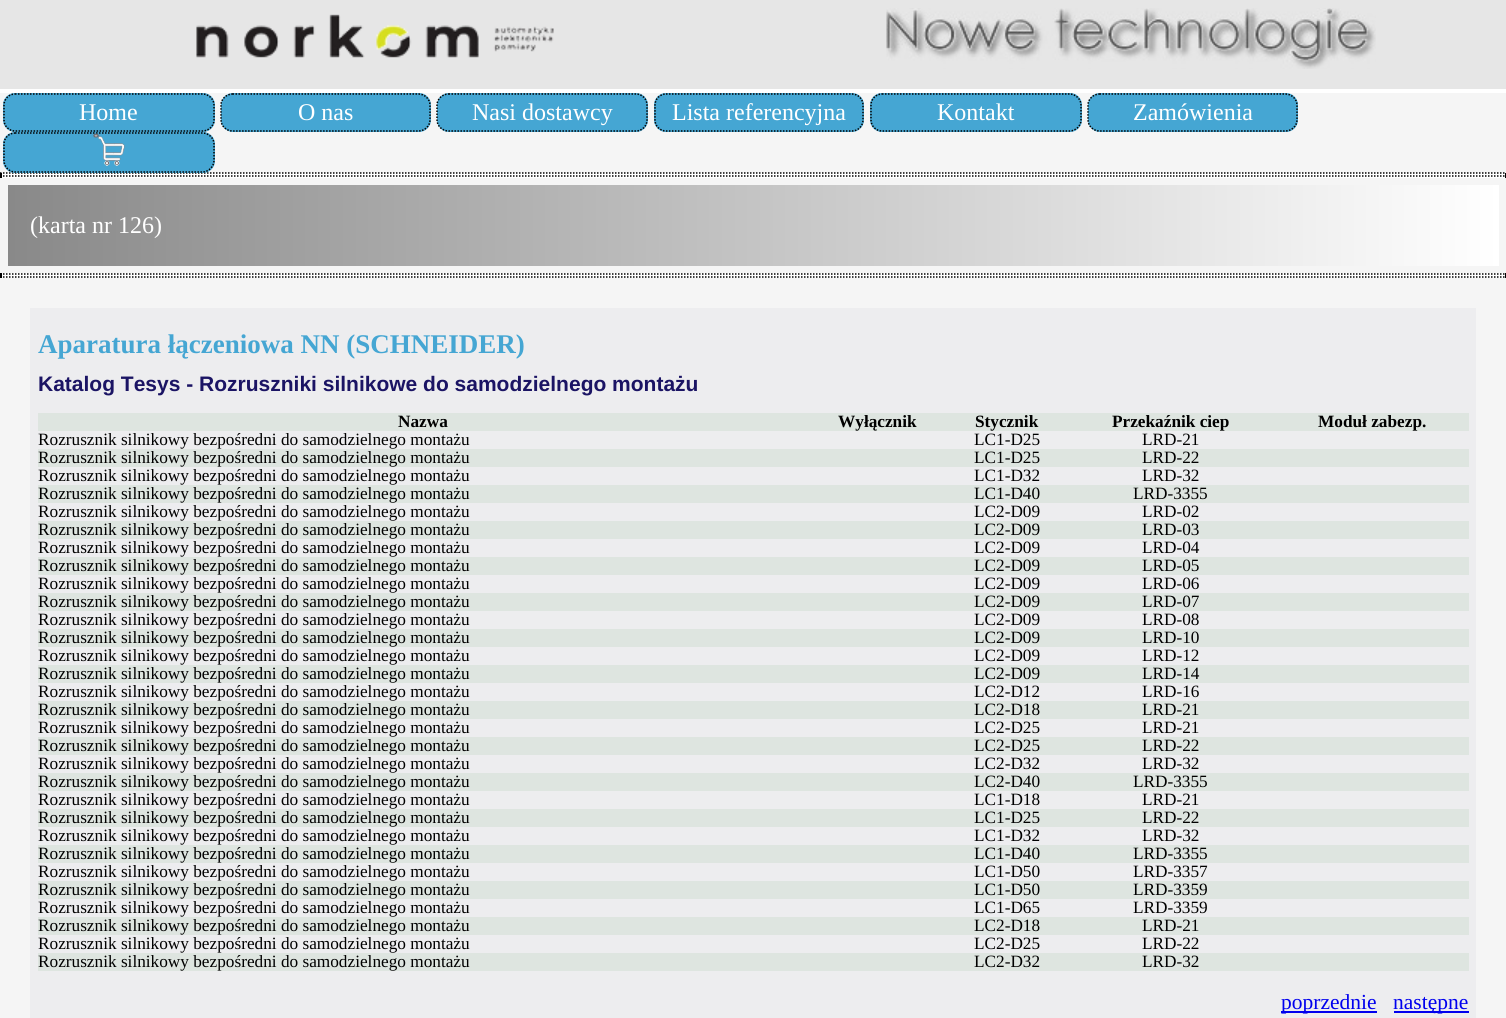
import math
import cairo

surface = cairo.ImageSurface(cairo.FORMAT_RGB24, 1506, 1018)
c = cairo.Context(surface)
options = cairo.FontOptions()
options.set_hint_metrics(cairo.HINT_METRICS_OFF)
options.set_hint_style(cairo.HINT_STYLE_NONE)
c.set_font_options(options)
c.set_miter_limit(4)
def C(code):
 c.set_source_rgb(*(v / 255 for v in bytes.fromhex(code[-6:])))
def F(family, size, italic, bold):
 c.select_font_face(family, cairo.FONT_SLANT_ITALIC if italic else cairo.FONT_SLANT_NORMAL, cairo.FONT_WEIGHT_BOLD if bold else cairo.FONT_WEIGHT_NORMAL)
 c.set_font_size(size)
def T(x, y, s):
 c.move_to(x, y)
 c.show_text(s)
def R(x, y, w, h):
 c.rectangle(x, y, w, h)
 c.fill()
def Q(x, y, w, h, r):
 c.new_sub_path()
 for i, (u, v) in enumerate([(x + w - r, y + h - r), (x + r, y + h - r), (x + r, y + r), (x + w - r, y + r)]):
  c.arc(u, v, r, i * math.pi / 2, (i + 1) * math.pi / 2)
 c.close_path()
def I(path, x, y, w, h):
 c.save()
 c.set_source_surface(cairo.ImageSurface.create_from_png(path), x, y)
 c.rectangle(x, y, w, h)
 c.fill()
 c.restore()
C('f5f5f5')
c.paint()
C('e6e6e6')
R(0,0,1506,89)
I('1.png',196,14,358,44)
I('2.png',886,8,490,61)
C('ffffff')
R(0,89,1506,4)
C('45a6d3')
Q(3,93,212,39,12)
c.fill()
c.new_path()
c.move_to(15,94)
c.line_to(202.5,94)
c.curve_to(208.5,94,214,99,214,105)
c.line_to(214,120)
c.curve_to(214,126,208.5,131,202.5,131)
c.line_to(15,131)
c.curve_to(9,131,4,126,4,120)
c.line_to(4,105)
c.curve_to(4,99,9,94,15,94)
c.close_path()
C('000000')
c.set_line_width(1.5)
c.set_dash([1.5,1.5])
c.stroke()
F('Liberation Serif',24,0,0)
C('ffffff')
T(79,120,'Home')
C('45a6d3')
Q(221,93,210,39,12)
c.fill()
c.new_path()
c.move_to(232.5,94)
c.line_to(418.5,94)
c.curve_to(424.5,94,430,99,430,105)
c.line_to(430,120)
c.curve_to(430,126,424.5,131,418.5,131)
c.line_to(232.5,131)
c.curve_to(226.5,131,221,126,221,120)
c.line_to(221,105)
c.curve_to(221,99,226.5,94,232.5,94)
c.close_path()
C('000000')
c.stroke()
C('ffffff')
T(298,120,'O nas')
C('45a6d3')
Q(437,93,211,39,12)
c.fill()
c.new_path()
c.move_to(448.5,94)
c.line_to(636,94)
c.curve_to(642,94,647,99,647,105)
c.line_to(647,120)
c.curve_to(647,126,642,131,636,131)
c.line_to(448.5,131)
c.curve_to(442.5,131,437,126,437,120)
c.line_to(437,105)
c.curve_to(437,99,442.5,94,448.5,94)
c.close_path()
C('000000')
c.stroke()
C('ffffff')
T(472,120,'Nasi dostawcy')
C('45a6d3')
Q(654,93,210,39,12)
c.fill()
c.new_path()
c.move_to(666,94)
c.line_to(852,94)
c.curve_to(858,94,863,99,863,105)
c.line_to(863,120)
c.curve_to(863,126,858,131,852,131)
c.line_to(666,131)
c.curve_to(660,131,655,126,655,120)
c.line_to(655,105)
c.curve_to(655,99,660,94,666,94)
c.close_path()
C('000000')
c.stroke()
C('ffffff')
T(672,120,'Lista referencyjna')
C('45a6d3')
Q(870,93,212,39,12)
c.fill()
c.new_path()
c.move_to(882,94)
c.line_to(1069.5,94)
c.curve_to(1075.5,94,1081,99,1081,105)
c.line_to(1081,120)
c.curve_to(1081,126,1075.5,131,1069.5,131)
c.line_to(882,131)
c.curve_to(876,131,871,126,871,120)
c.line_to(871,105)
c.curve_to(871,99,876,94,882,94)
c.close_path()
C('000000')
c.stroke()
C('ffffff')
T(937,120,'Kontakt')
C('45a6d3')
Q(1088,93,210,39,12)
c.fill()
c.new_path()
c.move_to(1099.5,94)
c.line_to(1285.5,94)
c.curve_to(1291.5,94,1297,99,1297,105)
c.line_to(1297,120)
c.curve_to(1297,126,1291.5,131,1285.5,131)
c.line_to(1099.5,131)
c.curve_to(1093.5,131,1088,126,1088,120)
c.line_to(1088,105)
c.curve_to(1088,99,1093.5,94,1099.5,94)
c.close_path()
C('000000')
c.stroke()
C('ffffff')
T(1133,120,'Zamówienia')
R(0,173,1506,5)
c.new_path()
c.move_to(0,173)
c.line_to(1506,173)
C('000000')
c.stroke()
C('45a6d3')
Q(3,132,212,41,12)
c.fill()
c.new_path()
c.move_to(15,133)
c.line_to(202.5,133)
c.curve_to(208.5,133,214,138,214,144)
c.line_to(214,160.5)
c.curve_to(214,166.5,208.5,172,202.5,172)
c.line_to(15,172)
c.curve_to(9,172,4,166.5,4,160.5)
c.line_to(4,144)
c.curve_to(4,138,9,133,15,133)
c.close_path()
C('000000')
c.stroke()
I('3.png',93,133,32,33)
R(1505,173,1,5)
c.new_path()
c.move_to(0,176)
c.line_to(1506,176)
c.stroke()
R(0,173,2,5)
gradient = cairo.LinearGradient(1499,225,7.5,225)
gradient.add_color_stop_rgba(0,1,1,1,1)
gradient.add_color_stop_rgba(1,0.537,0.537,0.537,1)
c.set_source(gradient)
R(8,185,1491,81)
C('ffffff')
T(30,233,'(karta nr 126)')
R(0,273,1506,5)
c.new_path()
c.move_to(0,274)
c.line_to(1506,274)
C('000000')
c.stroke()
R(1505,273,1,5)
c.new_path()
c.move_to(0,277)
c.line_to(1506,277)
c.stroke()
R(0,273,2,5)
C('ededef')
R(30,308,1446,710)
F('Liberation Serif',27,0,1)
C('45a6d3')
T(38,353,'Aparatura łączeniowa NN (SCHNEIDER)')
F('Liberation Sans',21,0,1)
C('1b1464')
T(38,391,'Katalog Tesys - Rozruszniki silnikowe do samodzielnego montażu')
C('dee5e0')
R(38,413,1431,18)
F('Liberation Serif',17.25,0,1)
C('000000')
T(398,427,'Nazwa')
T(838,427,'Wyłącznik')
T(975,427,'Stycznik')
T(1112,427,'Przekaźnik ciep')
T(1318,427,'Moduł zabezp.')
F('Liberation Serif',17.25,0,0)
T(38,445,'Rozrusznik silnikowy bezpośredni do samodzielnego montażu')
T(974,445,'LC1-D25')
T(1142,445,'LRD-21')
C('dee5e0')
R(38,449,1431,18)
C('000000')
T(38,463,'Rozrusznik silnikowy bezpośredni do samodzielnego montażu')
T(974,463,'LC1-D25')
T(1142,463,'LRD-22')
T(38,481,'Rozrusznik silnikowy bezpośredni do samodzielnego montażu')
T(974,481,'LC1-D32')
T(1142,481,'LRD-32')
C('dee5e0')
R(38,485,1431,18)
C('000000')
T(38,499,'Rozrusznik silnikowy bezpośredni do samodzielnego montażu')
T(974,499,'LC1-D40')
T(1133,499,'LRD-3355')
T(38,517,'Rozrusznik silnikowy bezpośredni do samodzielnego montażu')
T(974,517,'LC2-D09')
T(1142,517,'LRD-02')
C('dee5e0')
R(38,521,1431,18)
C('000000')
T(38,535,'Rozrusznik silnikowy bezpośredni do samodzielnego montażu')
T(974,535,'LC2-D09')
T(1142,535,'LRD-03')
T(38,553,'Rozrusznik silnikowy bezpośredni do samodzielnego montażu')
T(974,553,'LC2-D09')
T(1142,553,'LRD-04')
C('dee5e0')
R(38,557,1431,18)
C('000000')
T(38,571,'Rozrusznik silnikowy bezpośredni do samodzielnego montażu')
T(974,571,'LC2-D09')
T(1142,571,'LRD-05')
T(38,589,'Rozrusznik silnikowy bezpośredni do samodzielnego montażu')
T(974,589,'LC2-D09')
T(1142,589,'LRD-06')
C('dee5e0')
R(38,593,1431,18)
C('000000')
T(38,607,'Rozrusznik silnikowy bezpośredni do samodzielnego montażu')
T(974,607,'LC2-D09')
T(1142,607,'LRD-07')
T(38,625,'Rozrusznik silnikowy bezpośredni do samodzielnego montażu')
T(974,625,'LC2-D09')
T(1142,625,'LRD-08')
C('dee5e0')
R(38,629,1431,18)
C('000000')
T(38,643,'Rozrusznik silnikowy bezpośredni do samodzielnego montażu')
T(974,643,'LC2-D09')
T(1142,643,'LRD-10')
T(38,661,'Rozrusznik silnikowy bezpośredni do samodzielnego montażu')
T(974,661,'LC2-D09')
T(1142,661,'LRD-12')
C('dee5e0')
R(38,665,1431,18)
C('000000')
T(38,679,'Rozrusznik silnikowy bezpośredni do samodzielnego montażu')
T(974,679,'LC2-D09')
T(1142,679,'LRD-14')
T(38,697,'Rozrusznik silnikowy bezpośredni do samodzielnego montażu')
T(974,697,'LC2-D12')
T(1142,697,'LRD-16')
C('dee5e0')
R(38,701,1431,18)
C('000000')
T(38,715,'Rozrusznik silnikowy bezpośredni do samodzielnego montażu')
T(974,715,'LC2-D18')
T(1142,715,'LRD-21')
T(38,733,'Rozrusznik silnikowy bezpośredni do samodzielnego montażu')
T(974,733,'LC2-D25')
T(1142,733,'LRD-21')
C('dee5e0')
R(38,737,1431,18)
C('000000')
T(38,751,'Rozrusznik silnikowy bezpośredni do samodzielnego montażu')
T(974,751,'LC2-D25')
T(1142,751,'LRD-22')
T(38,769,'Rozrusznik silnikowy bezpośredni do samodzielnego montażu')
T(974,769,'LC2-D32')
T(1142,769,'LRD-32')
C('dee5e0')
R(38,773,1431,18)
C('000000')
T(38,787,'Rozrusznik silnikowy bezpośredni do samodzielnego montażu')
T(974,787,'LC2-D40')
T(1133,787,'LRD-3355')
T(38,805,'Rozrusznik silnikowy bezpośredni do samodzielnego montażu')
T(974,805,'LC1-D18')
T(1142,805,'LRD-21')
C('dee5e0')
R(38,809,1431,18)
C('000000')
T(38,823,'Rozrusznik silnikowy bezpośredni do samodzielnego montażu')
T(974,823,'LC1-D25')
T(1142,823,'LRD-22')
T(38,841,'Rozrusznik silnikowy bezpośredni do samodzielnego montażu')
T(974,841,'LC1-D32')
T(1142,841,'LRD-32')
C('dee5e0')
R(38,845,1431,18)
C('000000')
T(38,859,'Rozrusznik silnikowy bezpośredni do samodzielnego montażu')
T(974,859,'LC1-D40')
T(1133,859,'LRD-3355')
T(38,877,'Rozrusznik silnikowy bezpośredni do samodzielnego montażu')
T(974,877,'LC1-D50')
T(1133,877,'LRD-3357')
C('dee5e0')
R(38,881,1431,18)
C('000000')
T(38,895,'Rozrusznik silnikowy bezpośredni do samodzielnego montażu')
T(974,895,'LC1-D50')
T(1133,895,'LRD-3359')
T(38,913,'Rozrusznik silnikowy bezpośredni do samodzielnego montażu')
T(974,913,'LC1-D65')
T(1133,913,'LRD-3359')
C('dee5e0')
R(38,917,1431,18)
C('000000')
T(38,931,'Rozrusznik silnikowy bezpośredni do samodzielnego montażu')
T(974,931,'LC2-D18')
T(1142,931,'LRD-21')
T(38,949,'Rozrusznik silnikowy bezpośredni do samodzielnego montażu')
T(974,949,'LC2-D25')
T(1142,949,'LRD-22')
C('dee5e0')
R(38,953,1431,18)
C('000000')
T(38,967,'Rozrusznik silnikowy bezpośredni do samodzielnego montażu')
T(974,967,'LC2-D32')
T(1142,967,'LRD-32')
C('0000ee')
R(1281,1011,96,2)
F('Liberation Serif',21.5,0,0)
T(1281,1009,'poprzednie')
R(1394,1011,75,2)
T(1393,1009,'następne')
surface.write_to_png('o.png')
